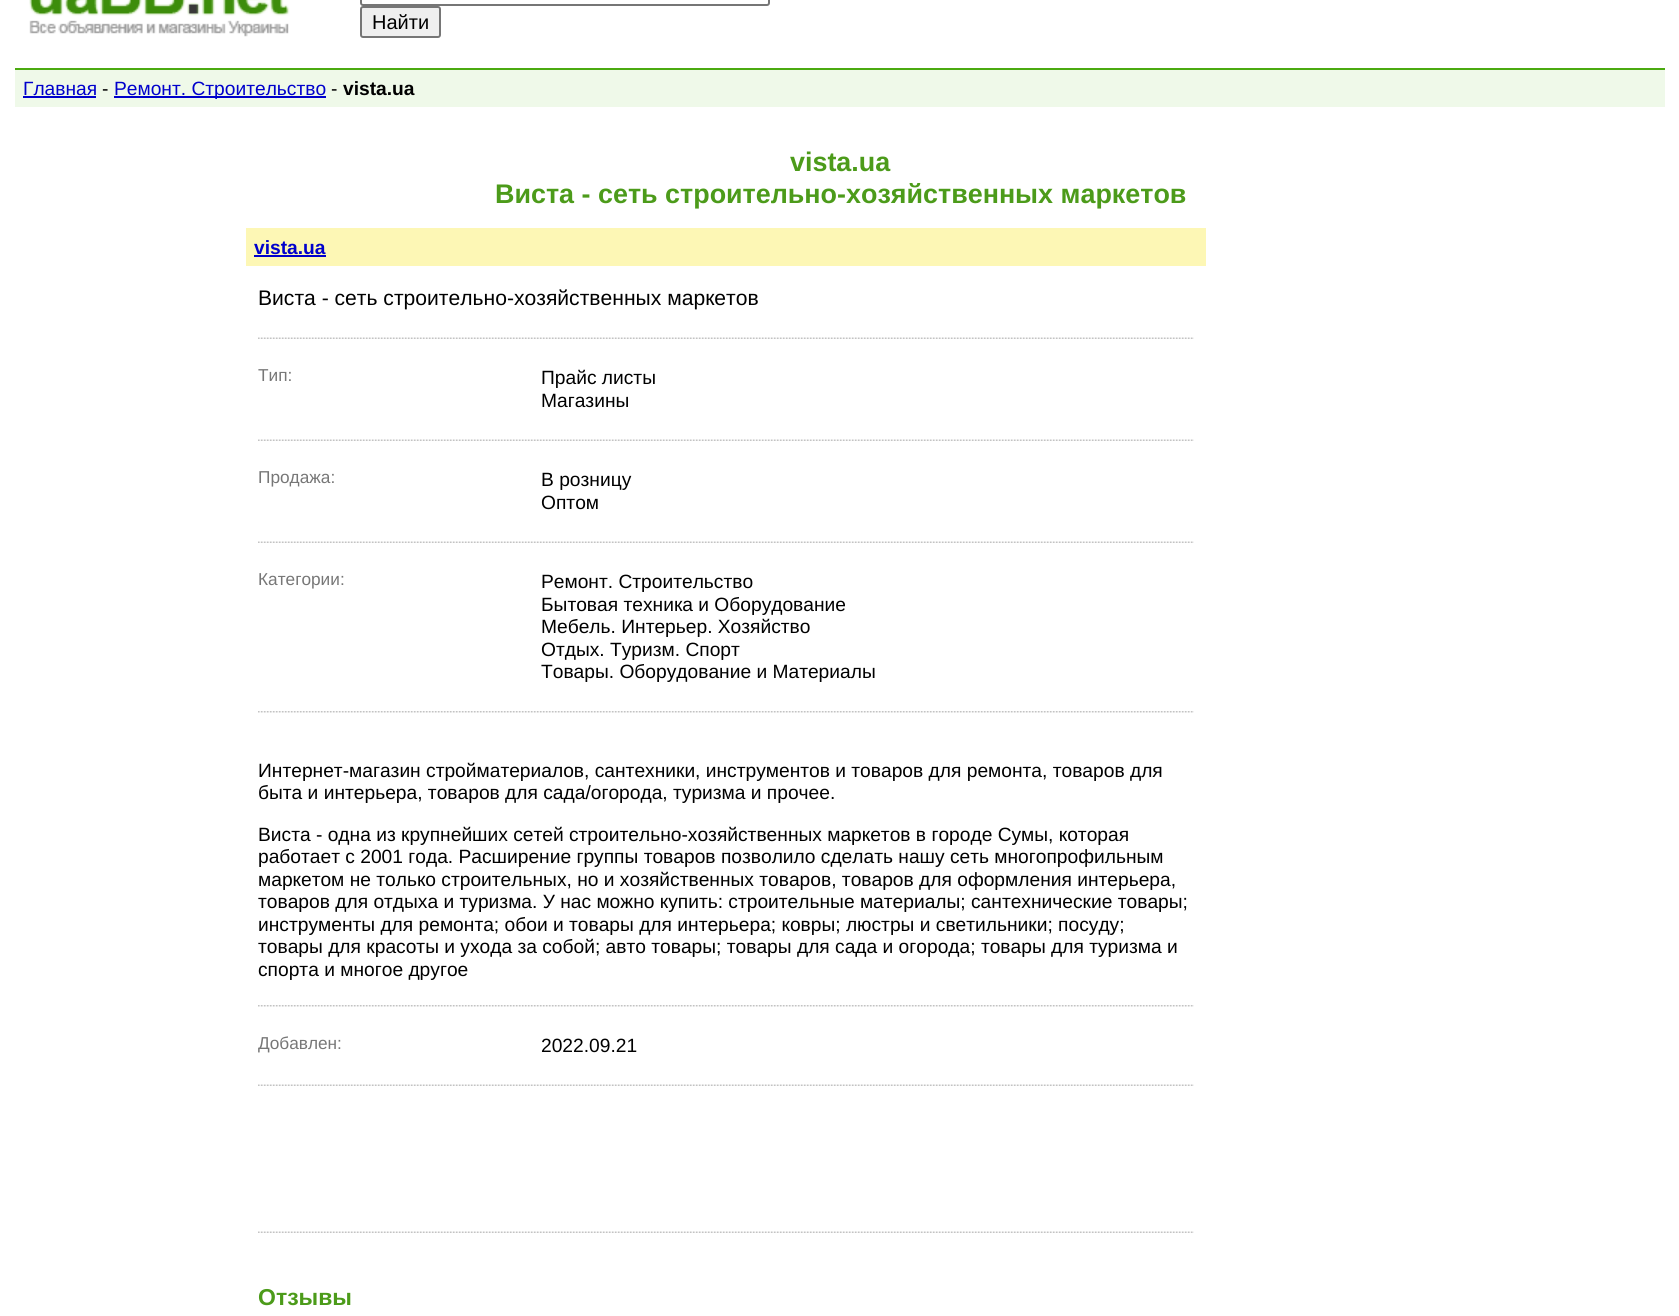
import math
import cairo

surface = cairo.ImageSurface(cairo.FORMAT_RGB24, 1679, 1316)
c = cairo.Context(surface)
options = cairo.FontOptions()
options.set_hint_metrics(cairo.HINT_METRICS_OFF)
options.set_hint_style(cairo.HINT_STYLE_NONE)
c.set_font_options(options)
c.set_miter_limit(4)
def C(code):
 c.set_source_rgb(*(v / 255 for v in bytes.fromhex(code[-6:])))
def F(family, size, italic, bold):
 c.select_font_face(family, cairo.FONT_SLANT_ITALIC if italic else cairo.FONT_SLANT_NORMAL, cairo.FONT_WEIGHT_BOLD if bold else cairo.FONT_WEIGHT_NORMAL)
 c.set_font_size(size)
def T(x, y, s):
 c.move_to(x, y)
 c.show_text(s)
def R(x, y, w, h):
 c.rectangle(x, y, w, h)
 c.fill()
def Q(x, y, w, h, r):
 c.new_sub_path()
 for i, (u, v) in enumerate([(x + w - r, y + h - r), (x + r, y + h - r), (x + r, y + r), (x + w - r, y + r)]):
  c.arc(u, v, r, i * math.pi / 2, (i + 1) * math.pi / 2)
 c.close_path()
def I(path, x, y, w, h):
 c.save()
 c.set_source_surface(cairo.ImageSurface.create_from_png(path), x, y)
 c.rectangle(x, y, w, h)
 c.fill()
 c.restore()
C('ffffff')
c.paint()
I('1.png',29,0,261,37)
Q(361,-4,408,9,2)
C('767676')
c.stroke()
C('efefef')
Q(361,7,79,30,2)
c.fill_preserve()
C('767676')
c.stroke()
F('Liberation Sans',20,0,0)
C('000000')
T(372,29,'Найти')
C('eff9e9')
R(15,70,1650,37)
C('4baa10')
R(15,68,1650,2)
F('Liberation Sans',19.2,0,0)
C('0000cc')
T(23,95,'Главная')
R(23,96,73,2)
C('000000')
T(102,95,'-')
C('0000cc')
R(114,96,212,2)
T(114,95,'Ремонт. Строительство')
C('000000')
T(331,95,'-')
F('Liberation Sans',19.2,0,1)
T(343,95,'vista.ua')
F('Liberation Sans',26.9,0,1)
C('4c9b1a')
T(790,171,'vista.ua')
T(495,203,'Виста - сеть строительно-хозяйственных маркетов')
C('fdf7b5')
R(246,228,960,38)
F('Liberation Sans',19.2,0,1)
C('0000cc')
T(254,254,'vista.ua')
R(254,255,72,2)
F('Liberation Sans',21.1,0,0)
C('000000')
T(258,305,'Виста - сеть строительно-хозяйственных маркетов')
I('2.png',258,337,936,2)
F('Liberation Sans',17.25,0,0)
C('777777')
T(258,381,'Тип:')
F('Liberation Sans',19.2,0,0)
C('000000')
T(541,384,'Прайс листы')
T(541,407,'Магазины')
I('2.png',258,439,936,2)
F('Liberation Sans',17.25,0,0)
C('777777')
T(258,483,'Продажа:')
F('Liberation Sans',19.2,0,0)
C('000000')
T(541,486,'В розницу')
T(541,509,'Оптом')
I('2.png',258,541,936,2)
F('Liberation Sans',17.25,0,0)
C('777777')
T(258,585,'Категории:')
F('Liberation Sans',19.2,0,0)
C('000000')
T(541,588,'Ремонт. Строительство')
T(541,611,'Бытовая техника и Оборудование')
T(541,633,'Мебель. Интерьер. Хозяйство')
T(541,656,'Отдых. Туризм. Спорт')
T(541,678,'Товары. Оборудование и Материалы')
I('3.png',258,711,936,2)
T(258,777,'Интернет-магазин стройматериалов, сантехники, инструментов и товаров для ремонта, товаров для')
T(258,799,'быта и интерьера, товаров для сада/огорода, туризма и прочее.')
T(258,841,'Виста - одна из крупнейших сетей строительно-хозяйственных маркетов в городе Сумы, которая')
T(258,863,'работает с 2001 года. Расширение группы товаров позволило сделать нашу сеть многопрофильным')
T(258,886,'маркетом не только строительных, но и хозяйственных товаров, товаров для оформления интерьера,')
T(258,908,'товаров для отдыха и туризма. У нас можно купить: строительные материалы; сантехнические товары;')
T(258,931,'инструменты для ремонта; обои и товары для интерьера; ковры; люстры и светильники; посуду;')
T(258,953,'товары для красоты и ухода за собой; авто товары; товары для сада и огорода; товары для туризма и')
T(258,976,'спорта и многое другое')
I('3.png',258,1005,936,2)
F('Liberation Sans',17.25,0,0)
C('777777')
T(258,1049,'Добавлен:')
F('Liberation Sans',19.2,0,0)
C('000000')
T(541,1052,'2022.09.21')
I('2.png',258,1084,936,2)
I('2.png',258,1231,936,2)
F('Liberation Sans',23,0,1)
C('4c9b1a')
T(258,1305,'Отзывы')
surface.write_to_png('o.png')
